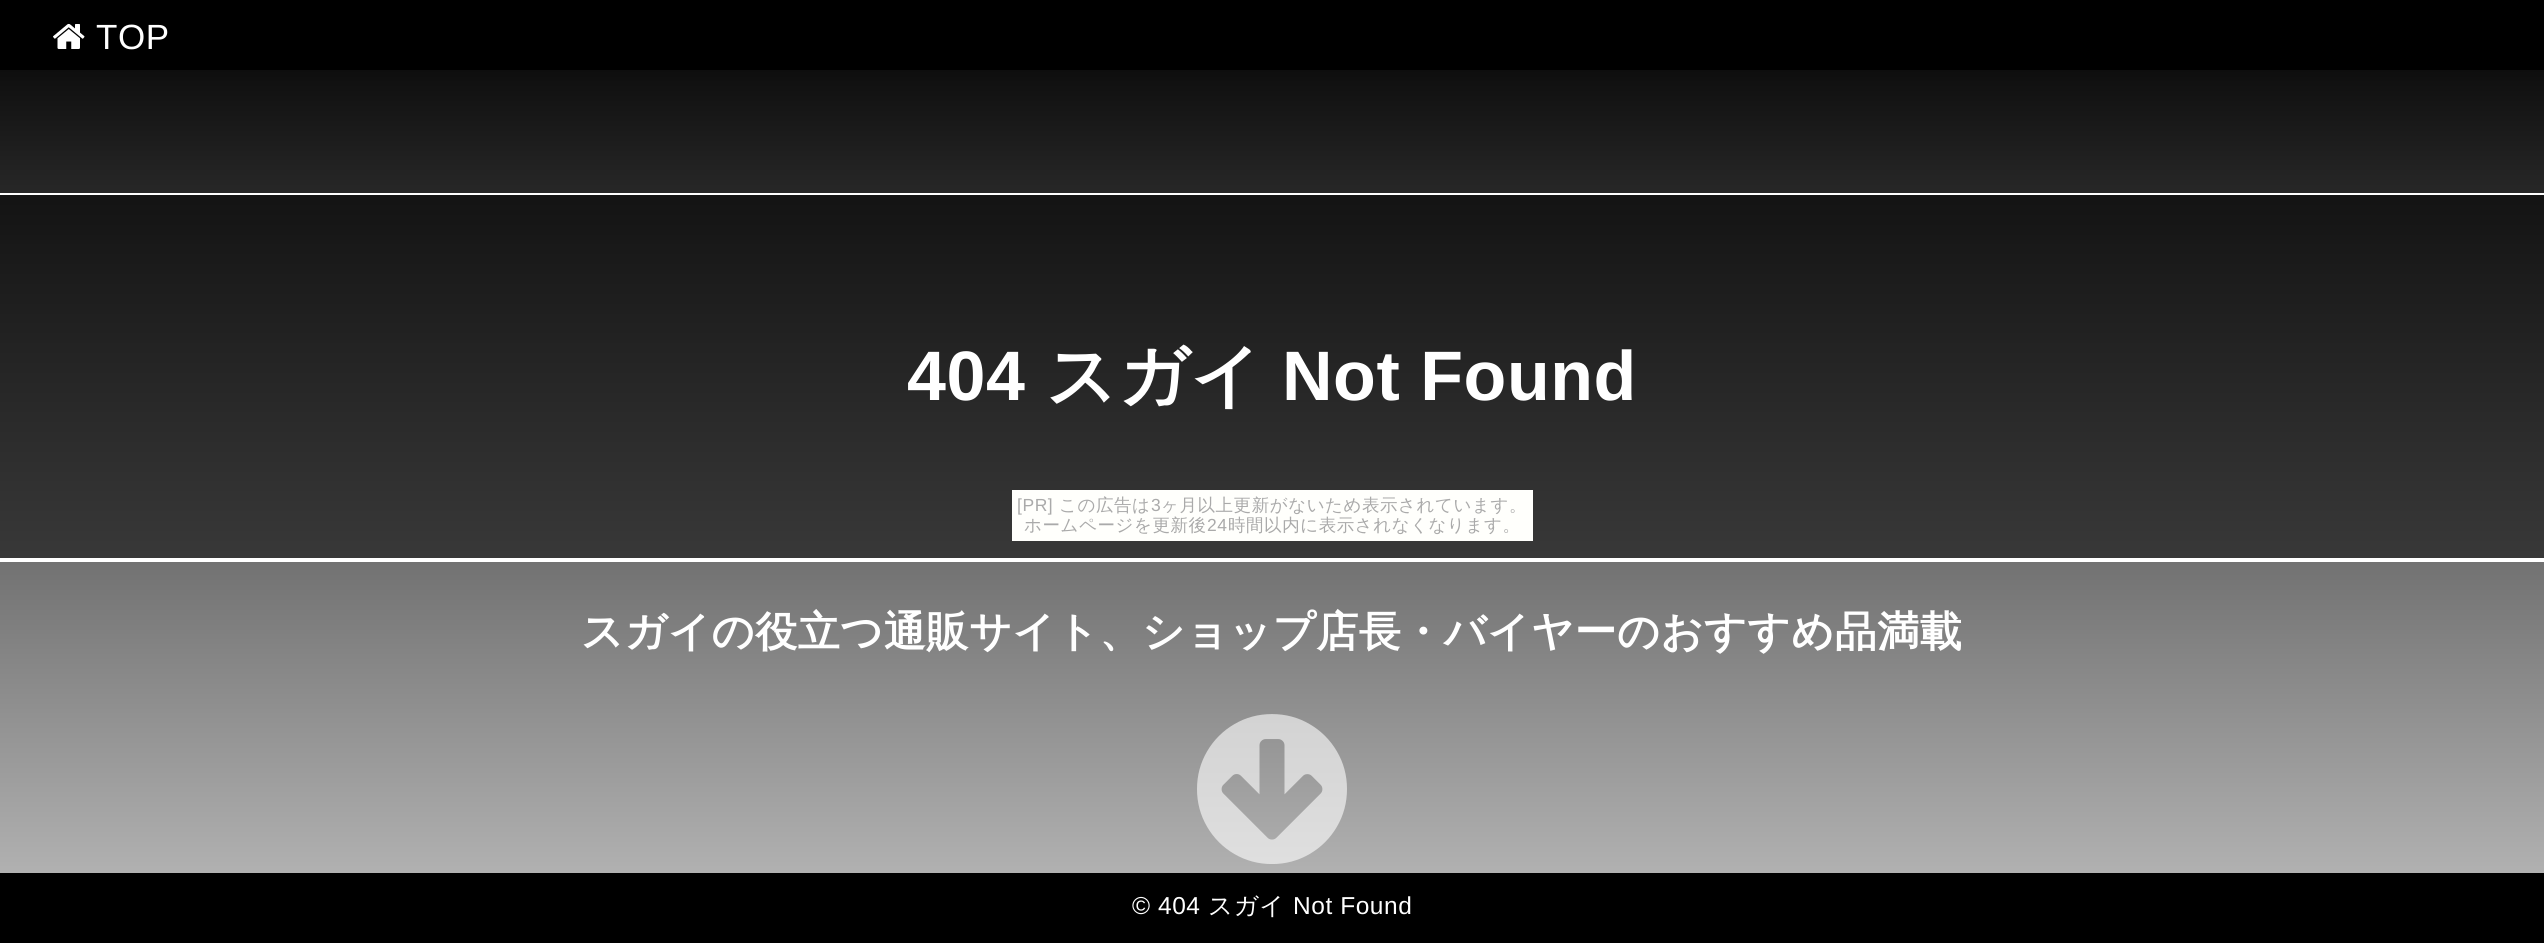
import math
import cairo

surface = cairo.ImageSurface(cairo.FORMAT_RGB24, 2544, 943)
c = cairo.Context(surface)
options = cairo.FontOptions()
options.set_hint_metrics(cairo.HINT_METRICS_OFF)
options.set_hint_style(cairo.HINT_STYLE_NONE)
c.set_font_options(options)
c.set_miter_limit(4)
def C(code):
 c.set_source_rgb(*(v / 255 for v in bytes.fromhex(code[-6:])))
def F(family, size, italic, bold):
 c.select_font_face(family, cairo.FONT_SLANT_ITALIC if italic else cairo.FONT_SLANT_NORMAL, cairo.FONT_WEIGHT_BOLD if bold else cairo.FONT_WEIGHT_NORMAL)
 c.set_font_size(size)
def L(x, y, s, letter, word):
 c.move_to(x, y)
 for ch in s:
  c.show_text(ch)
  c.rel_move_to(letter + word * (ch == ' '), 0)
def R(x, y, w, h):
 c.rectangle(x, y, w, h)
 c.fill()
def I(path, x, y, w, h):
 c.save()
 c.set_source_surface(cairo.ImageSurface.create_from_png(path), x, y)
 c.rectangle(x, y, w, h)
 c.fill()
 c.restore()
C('ffffff')
c.paint()
C('000000')
R(0,0,2544,70)
I('1.png',53,23,32,26)
F('Liberation Sans',35,0,0)
C('ffffff')
L(96,49,'TOP',.55,0)
gradient = cairo.LinearGradient(1272,0,1272,943)
gradient.add_color_stop_rgba(0,0,0,0,1)
gradient.add_color_stop_rgba(1,0.749,0.749,0.749,1)
c.set_source(gradient)
R(0,70,2544,803)
c.set_source_rgba(0,0,0,0.5)
R(0,195,2544,363)
C('ffffff')
R(0,193,2544,2)
R(0,558,2544,4)
F('Liberation Sans',70,0,1)
L(907,400,'404',.55,0)
F('WenQuanYi Zen Hei',70,0,1)
L(1046,400,'スガイ',.55,0)
F('Liberation Sans',70,0,1)
L(1282,400,'Not Found',.55,0)
F('WenQuanYi Zen Hei',42,0,1)
L(581,646,'スガイの役立つ通販サイト、ショップ店長・バイヤーのおすすめ品満載',.55,0)
I('2.png',1197,714,150,150)
C('000000')
R(0,873,2544,70)
F('Liberation Sans',24.5,0,0)
C('ffffff')
L(1132,914,'© 404',.55,0)
F('WenQuanYi Zen Hei Medium',24.5,0,0)
L(1208,914,'スガイ',.55,0)
F('Liberation Sans',24.5,0,0)
L(1293,914,'Not Found',.55,0)
C('fffffc')
R(1012,490,521,51)
F('Liberation Sans',17.5,0,0)
C('aaaaaa')
L(1017,511,'[PR]',.55,0)
F('WenQuanYi Zen Hei Medium',17.5,0,0)
L(1059,511,'この広告は',.55,0)
F('Liberation Sans',17.5,0,0)
L(1151,511,'3',.55,0)
F('WenQuanYi Zen Hei Medium',17.5,0,0)
L(1161,511,'ヶ月以上更新がないため表示されています。',.55,0)
L(1024,531,'ホームページを更新後',.55,0)
F('Liberation Sans',17.5,0,0)
L(1207,531,'24',.55,0)
F('WenQuanYi Zen Hei Medium',17.5,0,0)
L(1228,531,'時間以内に表示されなくなります。',.55,0)
surface.write_to_png('o.png')
